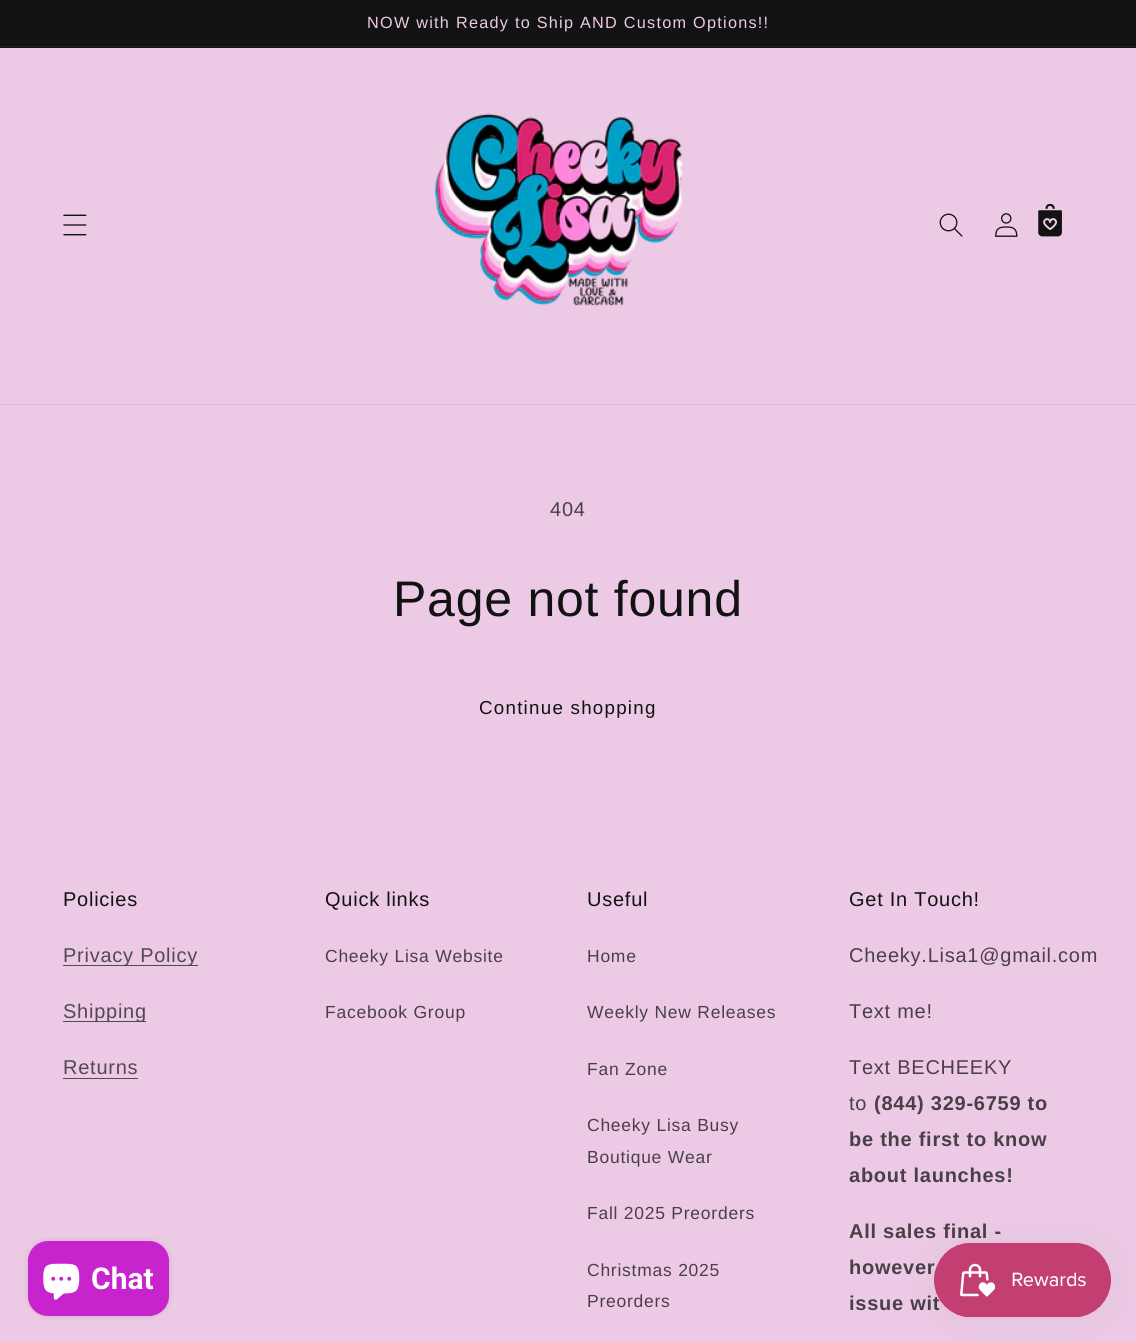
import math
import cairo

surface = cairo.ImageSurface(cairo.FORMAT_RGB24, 1136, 1342)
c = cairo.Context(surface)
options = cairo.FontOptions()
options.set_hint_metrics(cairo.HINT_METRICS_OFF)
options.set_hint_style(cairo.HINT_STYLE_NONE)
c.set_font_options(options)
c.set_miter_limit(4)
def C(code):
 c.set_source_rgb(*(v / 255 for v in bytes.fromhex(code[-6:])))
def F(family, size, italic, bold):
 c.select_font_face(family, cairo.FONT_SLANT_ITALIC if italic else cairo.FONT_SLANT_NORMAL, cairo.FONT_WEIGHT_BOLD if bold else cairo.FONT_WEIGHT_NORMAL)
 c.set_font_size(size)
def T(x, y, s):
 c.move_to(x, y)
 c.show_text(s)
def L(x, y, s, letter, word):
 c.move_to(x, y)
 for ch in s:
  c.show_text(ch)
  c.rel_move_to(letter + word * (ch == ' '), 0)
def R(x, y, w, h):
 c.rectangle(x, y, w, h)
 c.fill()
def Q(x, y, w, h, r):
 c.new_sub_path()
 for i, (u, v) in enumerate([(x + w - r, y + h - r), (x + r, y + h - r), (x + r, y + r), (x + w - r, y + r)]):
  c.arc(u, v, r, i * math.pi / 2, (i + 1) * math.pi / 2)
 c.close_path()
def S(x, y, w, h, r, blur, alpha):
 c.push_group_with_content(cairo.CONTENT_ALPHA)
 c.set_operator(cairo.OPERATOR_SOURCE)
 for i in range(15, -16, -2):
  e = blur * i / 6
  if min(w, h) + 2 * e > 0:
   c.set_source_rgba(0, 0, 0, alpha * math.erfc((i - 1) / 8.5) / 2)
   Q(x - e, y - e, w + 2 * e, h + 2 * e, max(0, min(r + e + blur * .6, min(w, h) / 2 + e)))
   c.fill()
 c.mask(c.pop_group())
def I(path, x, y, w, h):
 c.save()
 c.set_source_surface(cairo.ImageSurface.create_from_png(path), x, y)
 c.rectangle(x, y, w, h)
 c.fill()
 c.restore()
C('eccae5')
c.paint()
C('121212')
R(0,0,1136,48)
C('232123')
R(0,46,1136,1)
F('Liberation Sans',16.25,0,0)
C('eccae5')
L(367,28,'NOW with Ready to Ship AND Custom Options!!',1.25,0)
C('dbbbd4')
R(0,404,1136,1)
I('1.png',63,214,24,22)
I('2.png',434,113,250,193)
I('3.png',939,213,24,24)
I('4.png',995,213,23,24)
I('5.png',1038,204,24,33)
F('Liberation Sans',20,0,0)
C('494047')
L(550,516,'404',.75,0)
F('Liberation Sans',50,0,0)
C('121212')
L(393,616,'Page not found',.75,0)
F('Liberation Sans',18.75,0,0)
L(479,714,'Continue shopping',1.25,0)
F('Liberation Sans',20,0,0)
L(63,906,'Policies',.75,0)
C('534951')
R(63,965,135,1)
L(63,962,'Privacy Policy',.75,0)
R(63,1021,83,1)
L(63,1018,'Shipping',.75,0)
L(63,1074,'Returns',.75,0)
R(63,1078,75,1)
C('121212')
L(325,906,'Quick links',.75,0)
F('Liberation Sans',17.5,0,0)
C('494047')
L(325,962,'Cheeky Lisa Website',.75,0)
L(325,1018,'Facebook Group',.75,0)
F('Liberation Sans',20,0,0)
C('121212')
L(587,906,'Useful',.75,0)
F('Liberation Sans',17.5,0,0)
C('494047')
L(587,962,'Home',.75,0)
L(587,1018,'Weekly New Releases',.75,0)
L(587,1075,'Fan Zone',.75,0)
L(587,1131,'Cheeky Lisa Busy',.75,0)
L(587,1163,'Boutique Wear',.75,0)
L(587,1219,'Fall 2025 Preorders',.75,0)
L(587,1276,'Christmas 2025',.75,0)
L(587,1307,'Preorders',.75,0)
F('Liberation Sans',20,0,0)
C('121212')
L(849,906,'Get In Touch!',.75,0)
C('494047')
L(849,962,'Cheeky.Lisa1@gmail.com',.75,0)
L(849,1018,'Text me!',.75,0)
L(849,1074,'Text BECHEEKY',.75,0)
L(849,1110,'to',.75,0)
F('Liberation Sans',20,0,1)
L(874,1110,'(844) 329-6759 to',.75,0)
L(849,1146,'be the first to know',.75,0)
L(849,1182,'about launches!',.75,0)
L(849,1238,'All sales final -',.75,0)
L(849,1274,'however',.75,0)
L(849,1310,'issue wit',.75,0)
C('000000')
S(28,1241,141,75,20,3,.15)
C('c724ce')
Q(28,1241,141,75,20)
c.fill()
I('6.png',43,1263,37,37)
F('Roboto',30,0,1)
C('ffffff')
T(91,1289,'Chat')
C('000000')
S(934,1243,177,75,37.5,15.5,.05)
I('7.png',934,1242,177,76)
surface.write_to_png('o.png')
